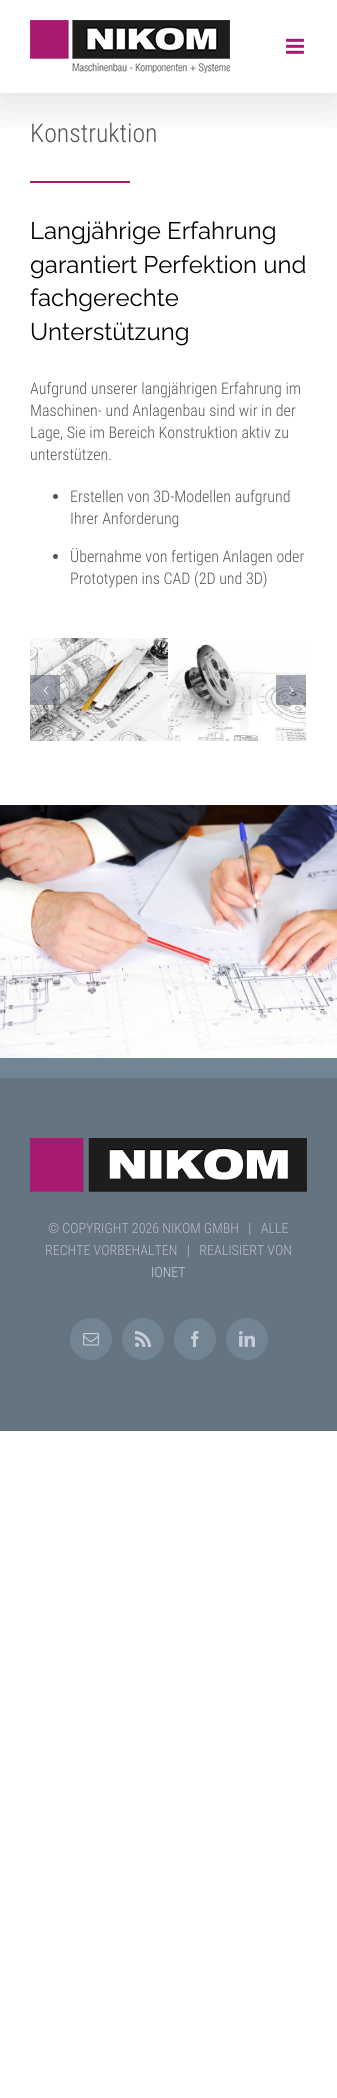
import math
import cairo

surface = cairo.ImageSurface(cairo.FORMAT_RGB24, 337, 2098)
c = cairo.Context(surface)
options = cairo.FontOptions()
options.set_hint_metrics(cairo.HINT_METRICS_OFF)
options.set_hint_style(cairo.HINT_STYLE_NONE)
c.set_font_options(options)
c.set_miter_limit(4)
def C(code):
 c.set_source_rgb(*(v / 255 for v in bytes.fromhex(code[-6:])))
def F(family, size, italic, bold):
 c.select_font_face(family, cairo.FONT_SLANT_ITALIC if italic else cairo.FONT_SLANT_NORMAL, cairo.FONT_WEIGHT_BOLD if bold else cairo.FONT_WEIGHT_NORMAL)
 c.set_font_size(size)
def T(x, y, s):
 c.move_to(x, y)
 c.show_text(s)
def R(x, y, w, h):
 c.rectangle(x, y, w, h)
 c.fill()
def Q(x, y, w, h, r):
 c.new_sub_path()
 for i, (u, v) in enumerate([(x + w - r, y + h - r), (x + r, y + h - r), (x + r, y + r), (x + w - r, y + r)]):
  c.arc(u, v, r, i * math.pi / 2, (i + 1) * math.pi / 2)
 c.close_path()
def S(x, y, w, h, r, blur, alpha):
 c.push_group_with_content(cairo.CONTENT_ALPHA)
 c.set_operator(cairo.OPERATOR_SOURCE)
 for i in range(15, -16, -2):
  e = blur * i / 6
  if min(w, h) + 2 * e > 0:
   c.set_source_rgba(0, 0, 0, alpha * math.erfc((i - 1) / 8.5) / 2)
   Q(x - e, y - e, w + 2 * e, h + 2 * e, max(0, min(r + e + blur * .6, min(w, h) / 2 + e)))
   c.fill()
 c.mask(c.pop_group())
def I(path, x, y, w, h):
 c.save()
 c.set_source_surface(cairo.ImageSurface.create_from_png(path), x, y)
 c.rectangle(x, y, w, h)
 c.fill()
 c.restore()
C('ffffff')
c.paint()
c.save()
c.rectangle(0,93,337,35)
c.clip()
C('000000')
S(2,12,333,89,0,25,.14)
c.restore()
I('1.png',30,20,200,53)
I('2.png',286,38,18,16)
F('Roboto Condensed Light',25.75,0,0)
C('555555')
T(30,142,'Konstruktion')
C('a61b71')
R(30,181,100,2)
F('Raleway',24,0,0)
C('000000')
T(30,239,'Langjährige Erfahrung')
T(30,273,'garantiert Perfektion und')
T(30,306,'fachgerechte')
T(30,340,'Unterstützung')
F('Roboto Condensed Light',16,0,0)
C('555555')
T(30,394,'Aufgrund unserer langjährigen Erfahrung im')
T(30,416,'Maschinen- und Anlagenbau sind wir in der')
T(30,438,'Lage, Sie im Bereich Konstruktion aktiv zu')
T(30,460,'unterstützen.')
c.new_path()
c.arc(55.5,496.5,2.5,0,2 * math.pi)
c.fill()
T(70,502,'Erstellen von 3D-Modellen aufgrund')
T(70,524,'Ihrer Anforderung')
c.new_path()
c.arc(55.5,556.5,2.5,0,2 * math.pi)
c.fill()
T(70,562,'Übernahme von fertigen Anlagen oder')
T(70,584,'Prototypen ins CAD (2D und 3D)')
I('3.png',30,638,138,103)
I('4.png',168,644,138,97)
c.set_source_rgba(0.298,0.318,0.4,0.48)
R(30,675,30,30)
I('5.png',43,686,5,9)
R(276,675,30,30)
I('6.png',289,686,5,9)
I('7.png',0,805,337,253)
C('647481')
R(0,1078,337,353)
C('738493')
R(0,1058,337,20)
I('8.png',30,1138,277,55)
F('Roboto Condensed Light',14,0,0)
C('bdbcc6')
T(48,1233,'© COPYRIGHT 2026 NIKOM GMBH   |   ALLE')
T(45,1255,'RECHTE VORBEHALTEN   |   REALISIERT VON')
C('cdcfd6')
T(151,1277,'IONET')
C('738493')
c.new_path()
c.arc(91,1339,20.5,0,2 * math.pi)
c.fill_preserve()
c.set_line_width(1)
c.stroke()
I('9.png',83,1333,16,13)
c.arc(143,1339,20.5,0,2 * math.pi)
c.fill_preserve()
c.stroke()
I('10.png',135,1331,16,16)
c.arc(195,1339,20.5,0,2 * math.pi)
c.fill_preserve()
c.stroke()
I('11.png',191,1331,8,16)
c.arc(247,1339,20.5,0,2 * math.pi)
c.fill_preserve()
c.stroke()
I('12.png',239,1331,16,16)
surface.write_to_png('o.png')
